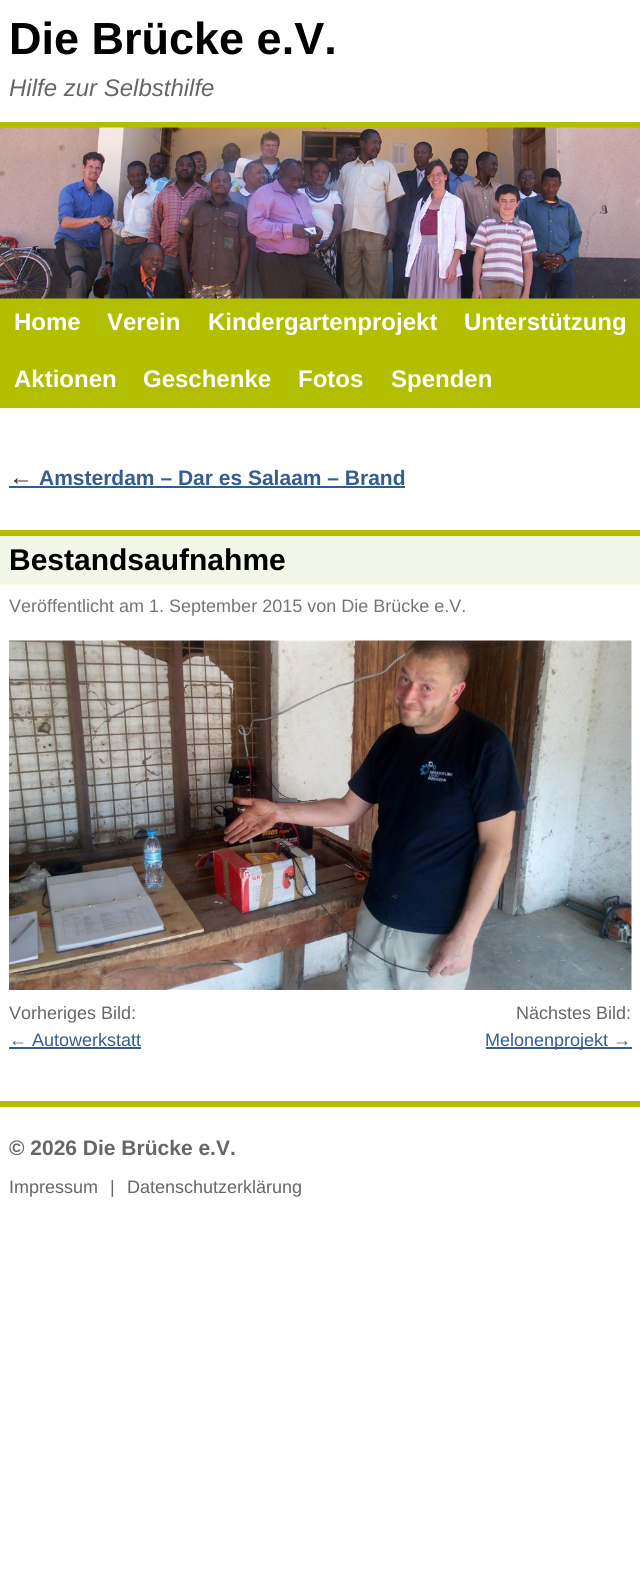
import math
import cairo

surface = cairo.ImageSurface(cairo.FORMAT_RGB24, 640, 1590)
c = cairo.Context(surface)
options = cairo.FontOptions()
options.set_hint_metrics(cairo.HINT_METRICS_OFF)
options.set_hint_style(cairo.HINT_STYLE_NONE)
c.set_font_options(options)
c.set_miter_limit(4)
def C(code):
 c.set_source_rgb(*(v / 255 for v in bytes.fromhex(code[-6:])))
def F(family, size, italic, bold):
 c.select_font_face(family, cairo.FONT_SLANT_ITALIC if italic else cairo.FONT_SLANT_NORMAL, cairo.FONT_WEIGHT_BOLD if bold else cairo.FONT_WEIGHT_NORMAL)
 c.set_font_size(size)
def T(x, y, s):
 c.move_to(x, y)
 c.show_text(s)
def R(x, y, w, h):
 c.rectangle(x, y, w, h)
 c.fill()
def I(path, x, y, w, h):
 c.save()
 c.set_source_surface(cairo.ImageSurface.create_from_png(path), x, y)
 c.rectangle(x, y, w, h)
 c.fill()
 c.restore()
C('ffffff')
c.paint()
F('Liberation Sans',45,0,1)
C('000000')
T(9,54,'Die Brücke e.V.')
F('Liberation Sans',24,1,0)
C('666666')
T(9,96,'Hilfe zur Selbsthilfe')
C('b1bf00')
R(0,122,640,6)
R(0,298,640,110)
I('1.png',0,127,640,172)
F('Liberation Sans',24,0,1)
C('ffffff')
T(14,330,'Home')
T(107,330,'Verein')
T(208,330,'Kindergartenprojekt')
T(464,330,'Unterstützung')
T(14,387,'Aktionen')
T(143,387,'Geschenke')
T(298,387,'Fotos')
T(391,387,'Spenden')
F('Liberation Sans',24,1,0)
C('333333')
T(9,485,'←')
C('335d90')
R(9,486,396,2)
F('Liberation Sans',21,0,1)
T(39,485,'Amsterdam – Dar es Salaam – Brand')
C('f2f7e7')
R(0,536,640,49)
C('b1bf00')
R(0,530,640,6)
F('Liberation Sans',30,0,1)
C('000000')
T(9,570,'Bestandsaufnahme')
F('Liberation Sans',18,0,0)
C('747474')
T(9,612,'Veröffentlicht am 1. September 2015 von Die Brücke e.V.')
I('2.png',9,640,623,350)
C('666666')
T(9,1019,'Vorheriges Bild:')
C('335d90')
T(9,1046,'← Autowerkstatt')
R(9,1047,132,2)
C('666666')
T(516,1019,'Nächstes Bild:')
C('335d90')
R(486,1047,146,2)
T(485,1046,'Melonenprojekt →')
C('b1bf00')
R(0,1101,640,6)
F('Liberation Sans',21,0,1)
C('666666')
T(9,1155,'© 2026 Die Brücke e.V.')
F('Liberation Sans',18,0,0)
T(9,1193,'Impressum')
T(110,1193,'|')
T(127,1193,'Datenschutzerklärung')
surface.write_to_png('o.png')
